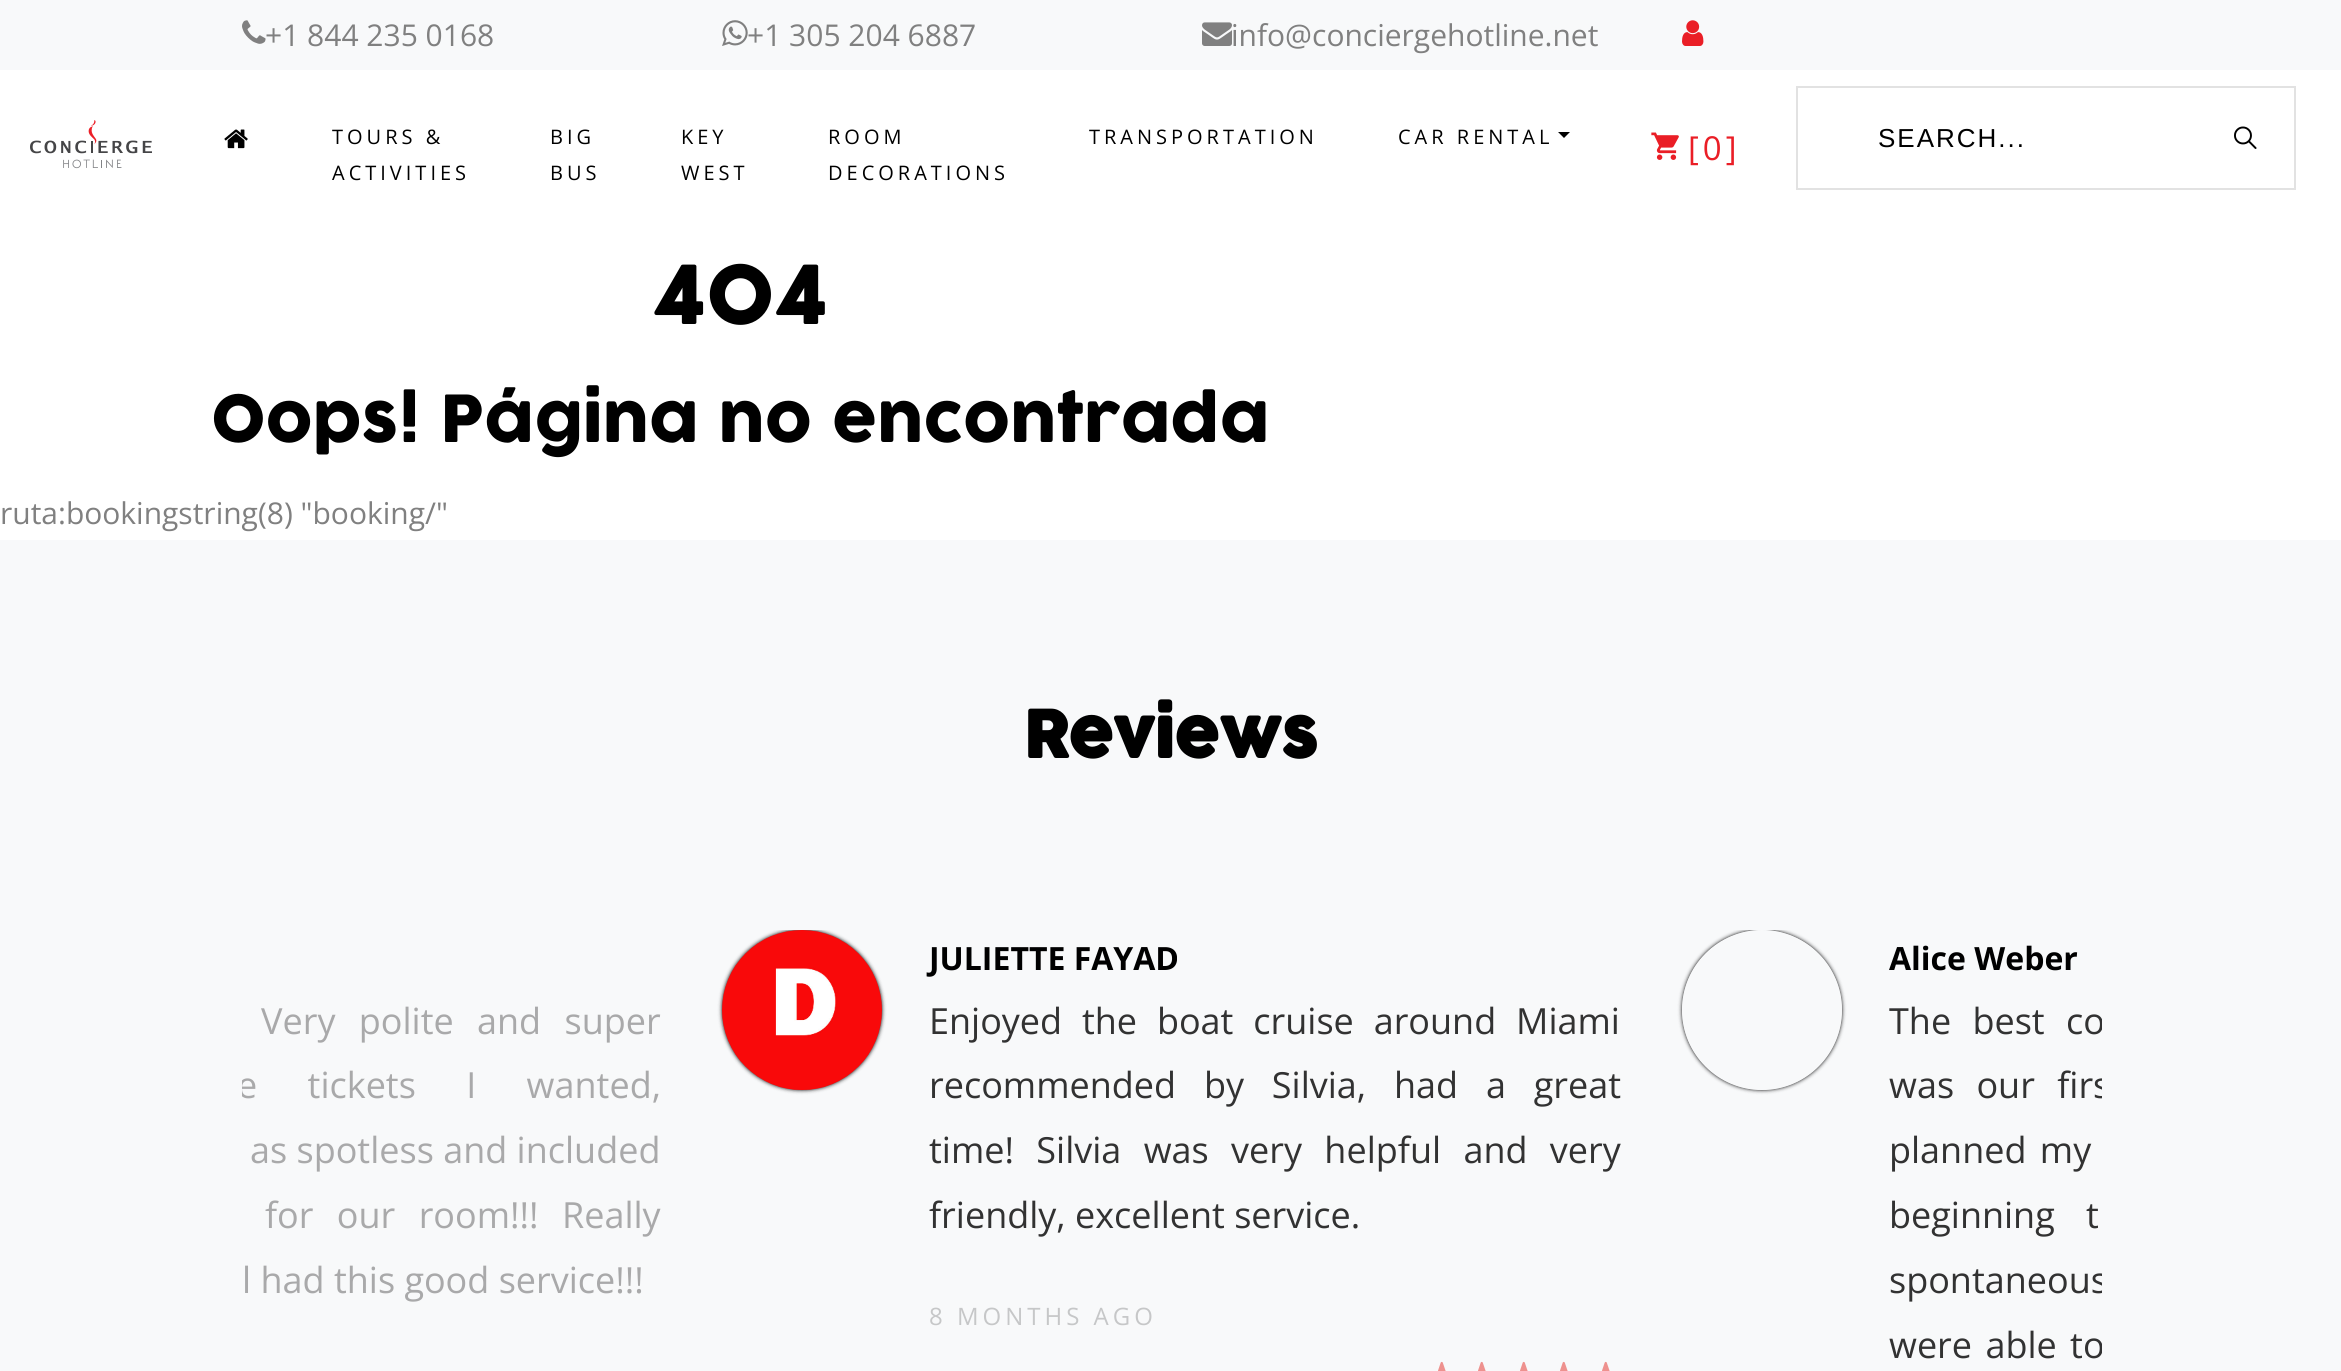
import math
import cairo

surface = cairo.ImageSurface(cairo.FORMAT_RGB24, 2341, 1371)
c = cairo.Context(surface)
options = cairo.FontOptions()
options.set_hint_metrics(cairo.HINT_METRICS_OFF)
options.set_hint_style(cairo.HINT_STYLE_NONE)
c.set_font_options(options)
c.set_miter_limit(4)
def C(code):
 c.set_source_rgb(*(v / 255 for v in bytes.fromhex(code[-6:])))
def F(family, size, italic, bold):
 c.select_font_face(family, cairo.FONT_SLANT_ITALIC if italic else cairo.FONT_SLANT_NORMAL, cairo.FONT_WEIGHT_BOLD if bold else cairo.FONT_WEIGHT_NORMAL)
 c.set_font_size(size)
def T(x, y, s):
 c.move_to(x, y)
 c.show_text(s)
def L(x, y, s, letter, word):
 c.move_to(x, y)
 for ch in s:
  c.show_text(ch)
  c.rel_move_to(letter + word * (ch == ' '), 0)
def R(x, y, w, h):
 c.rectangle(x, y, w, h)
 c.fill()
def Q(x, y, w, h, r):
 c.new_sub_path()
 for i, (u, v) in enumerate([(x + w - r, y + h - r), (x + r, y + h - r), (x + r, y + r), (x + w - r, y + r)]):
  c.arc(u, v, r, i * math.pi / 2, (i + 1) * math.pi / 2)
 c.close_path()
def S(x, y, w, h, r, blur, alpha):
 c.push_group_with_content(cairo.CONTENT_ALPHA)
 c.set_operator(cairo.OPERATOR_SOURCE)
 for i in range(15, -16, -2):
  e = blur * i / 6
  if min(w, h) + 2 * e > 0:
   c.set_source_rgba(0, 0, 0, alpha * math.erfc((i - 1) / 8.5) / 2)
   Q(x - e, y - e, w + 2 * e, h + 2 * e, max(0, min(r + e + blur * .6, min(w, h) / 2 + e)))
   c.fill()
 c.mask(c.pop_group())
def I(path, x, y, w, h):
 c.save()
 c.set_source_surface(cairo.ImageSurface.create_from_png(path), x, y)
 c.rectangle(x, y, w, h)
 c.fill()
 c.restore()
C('ffffff')
c.paint()
C('f8f9fa')
R(0,0,2341,70)
I('1.png',242,20,24,24)
F('Open Sans',30,0,0)
C('808080')
T(265,46,'+1 844 235 0168')
I('2.png',722,20,26,26)
T(747,46,'+1 305 204 6887')
I('3.png',1202,22,30,24)
T(1231,46,'info@conciergehotline.net')
I('4.png',1682,20,22,26)
I('5.png',30,120,122,49)
I('6.png',224,129,24,20)
F('Open Sans',20,0,0)
C('000000')
L(332,144,'TOURS &',4,0)
L(332,180,'ACTIVITIES',4,0)
L(550,144,'BIG',4,0)
L(550,180,'BUS',4,0)
L(681,144,'KEY',4,0)
L(681,180,'WEST',4,0)
L(828,144,'ROOM',4,0)
L(828,180,'DECORATIONS',4,0)
L(1089,144,'TRANSPORTATION',4,0)
L(1398,144,'CAR RENTAL',4,0)
c.new_path()
c.move_to(1558,132)
c.line_to(1570,132)
c.line_to(1564,138)
c.close_path()
c.fill()
I('7.png',1651,132,28,28)
F('Open Sans',33,0,0)
C('ea1e26')
L(1688,160,'[0]',4,0)
c.rectangle(1797,87,498,102)
C('e2e2e2')
c.stroke()
F('Liberation Sans',26,0,0)
C('000000')
L(1878,147,'SEARCH...',2,0)
I('8.png',2234,126,23,23)
F('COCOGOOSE',80,0,0)
T(653,324,'404')
F('COCOGOOSE',64,0,0)
T(211,442,'Oops! Página no encontrada')
F('Open Sans',30,0,0)
C('808080')
T(0,524,'ruta:bookingstring(8) "booking/"')
C('f8f9fa')
R(0,540,2341,831)
F('COCOGOOSE',64,0,1)
C('000000')
T(1023,758,'Reviews')
F('Open Sans',36,0,0)
C('a9a9aa')
L(261,1034,'Very polite and super',0,14)
c.save()
c.rectangle(242,930,1860,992)
c.clip()
L(237,1098,'e tickets I wanted,',0,41)
c.restore()
T(250,1163,'as spotless and included')
L(265,1228,'for our room!!!',0,14)
T(562,1228,'Really')
T(242,1293,'l had this good service!!!')
c.save()
c.rectangle(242,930,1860,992)
c.clip()
C('000000')
S(722,930,160,160,80,2,1)
c.restore()
I('9.png',722,930,160,160)
F('Open Sans',32,0,1)
C('000000')
T(929,970,'JULIETTE FAYAD')
F('Open Sans',36,0,0)
C('323232')
L(929,1034,'Enjoyed the boat cruise around Miami',0,10.5)
L(929,1098,'recommended by Silvia, had a great',0,18.5)
L(929,1163,'time! Silvia was very helpful and very',0,13)
T(929,1228,'friendly, excellent service.')
F('Open Sans',24,0,0)
C('c6c7c8')
L(929,1325,'8 MONTHS AGO',4,0)
I('10.png',1438,1361,8,10)
I('10.png',1478,1361,8,10)
I('10.png',1520,1361,8,10)
I('10.png',1560,1361,8,10)
I('10.png',1602,1361,8,10)
c.save()
c.rectangle(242,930,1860,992)
c.clip()
c.set_fill_rule(cairo.FILL_RULE_EVEN_ODD)
c.new_path()
c.move_to(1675,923)
c.line_to(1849,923)
c.line_to(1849,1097)
c.line_to(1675,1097)
c.close_path()
c.move_to(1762,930)
c.curve_to(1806,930,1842,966,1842,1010)
c.curve_to(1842,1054,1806,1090,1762,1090)
c.curve_to(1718,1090,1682,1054,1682,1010)
c.curve_to(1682,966,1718,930,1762,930)
c.close_path()
c.clip()
C('000000')
S(1682,930,160,160,80,2,1)
c.restore()
F('Open Sans',32,0,1)
C('000000')
T(1889,970,'Alice Weber')
c.save()
c.rectangle(242,930,1860,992)
c.clip()
F('Open Sans',36,0,0)
C('323232')
L(1889,1034,'The best co',0,12)
L(1889,1098,'was our firs',0,13)
c.restore()
F('Open Sans',36,0,0)
C('323232')
L(1889,1163,'planned my',0,4)
L(1889,1228,'beginning t',0,22)
c.save()
c.rectangle(242,930,1860,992)
c.clip()
L(1889,1293,'spontaneous',0,18)
L(1889,1358,'were able to',0,4)
c.restore()
surface.write_to_png('o.png')
